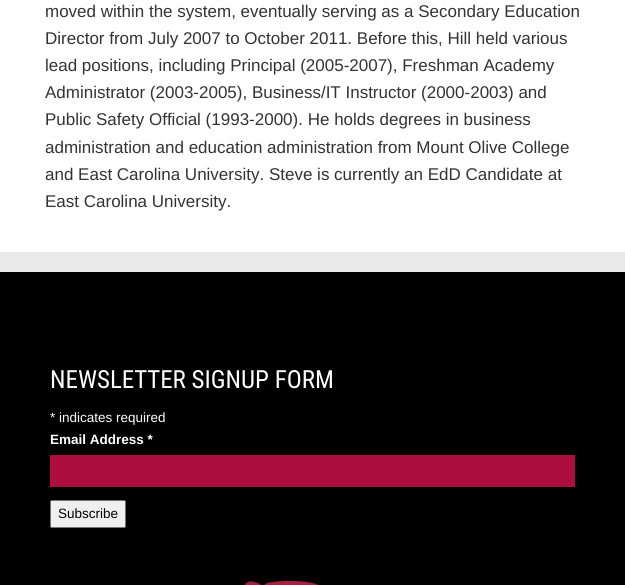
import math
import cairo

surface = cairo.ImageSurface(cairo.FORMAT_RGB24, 625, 585)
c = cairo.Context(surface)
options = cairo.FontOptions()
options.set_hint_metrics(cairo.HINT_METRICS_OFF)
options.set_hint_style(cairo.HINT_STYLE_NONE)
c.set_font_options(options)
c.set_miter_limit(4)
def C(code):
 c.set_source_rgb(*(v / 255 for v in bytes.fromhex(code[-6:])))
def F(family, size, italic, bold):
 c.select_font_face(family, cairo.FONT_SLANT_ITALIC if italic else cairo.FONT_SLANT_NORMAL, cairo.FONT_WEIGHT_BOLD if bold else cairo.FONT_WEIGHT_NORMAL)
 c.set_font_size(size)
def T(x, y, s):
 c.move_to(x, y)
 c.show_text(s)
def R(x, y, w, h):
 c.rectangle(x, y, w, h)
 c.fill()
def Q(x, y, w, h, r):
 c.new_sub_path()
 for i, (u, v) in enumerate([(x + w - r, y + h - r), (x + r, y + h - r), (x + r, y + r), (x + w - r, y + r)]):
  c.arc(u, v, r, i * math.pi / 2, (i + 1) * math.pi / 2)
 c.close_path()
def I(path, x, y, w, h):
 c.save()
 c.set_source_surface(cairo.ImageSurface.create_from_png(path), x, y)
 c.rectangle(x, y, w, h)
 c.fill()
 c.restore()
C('ffffff')
c.paint()
F('Liberation Sans',17,0,0)
C('333333')
T(45,17,'moved within the system, eventually serving as a Secondary Education')
T(45,44,'Director from July 2007 to October 2011. Before this, Hill held various')
T(45,71,'lead positions, including Principal (2005-2007), Freshman Academy')
T(45,98,'Administrator (2003-2005), Business/IT Instructor (2000-2003) and')
T(45,125,'Public Safety Official (1993-2000). He holds degrees in business')
T(45,153,'administration and education administration from Mount Olive College')
T(45,180,'and East Carolina University. Steve is currently an EdD Candidate at')
T(45,207,'East Carolina University.')
C('eaeaea')
R(0,252,625,20)
C('000000')
R(0,272,625,313)
F('Roboto Condensed',25,0,0)
C('ffffff')
T(50,388,'NEWSLETTER SIGNUP FORM')
F('Liberation Sans',13.5,0,0)
T(50,422,'* indicates required')
F('Liberation Sans',13.5,0,1)
T(50,444,'Email Address *')
C('ac0e40')
R(50,455,525,32)
C('efefef')
Q(50.5,500.5,75,27,1.5)
c.fill_preserve()
C('767676')
c.set_line_width(1)
c.stroke()
F('Liberation Sans',13.5,0,0)
C('000000')
T(58,518,'Subscribe')
I('1.png',244,581,75,4)
surface.write_to_png('o.png')
